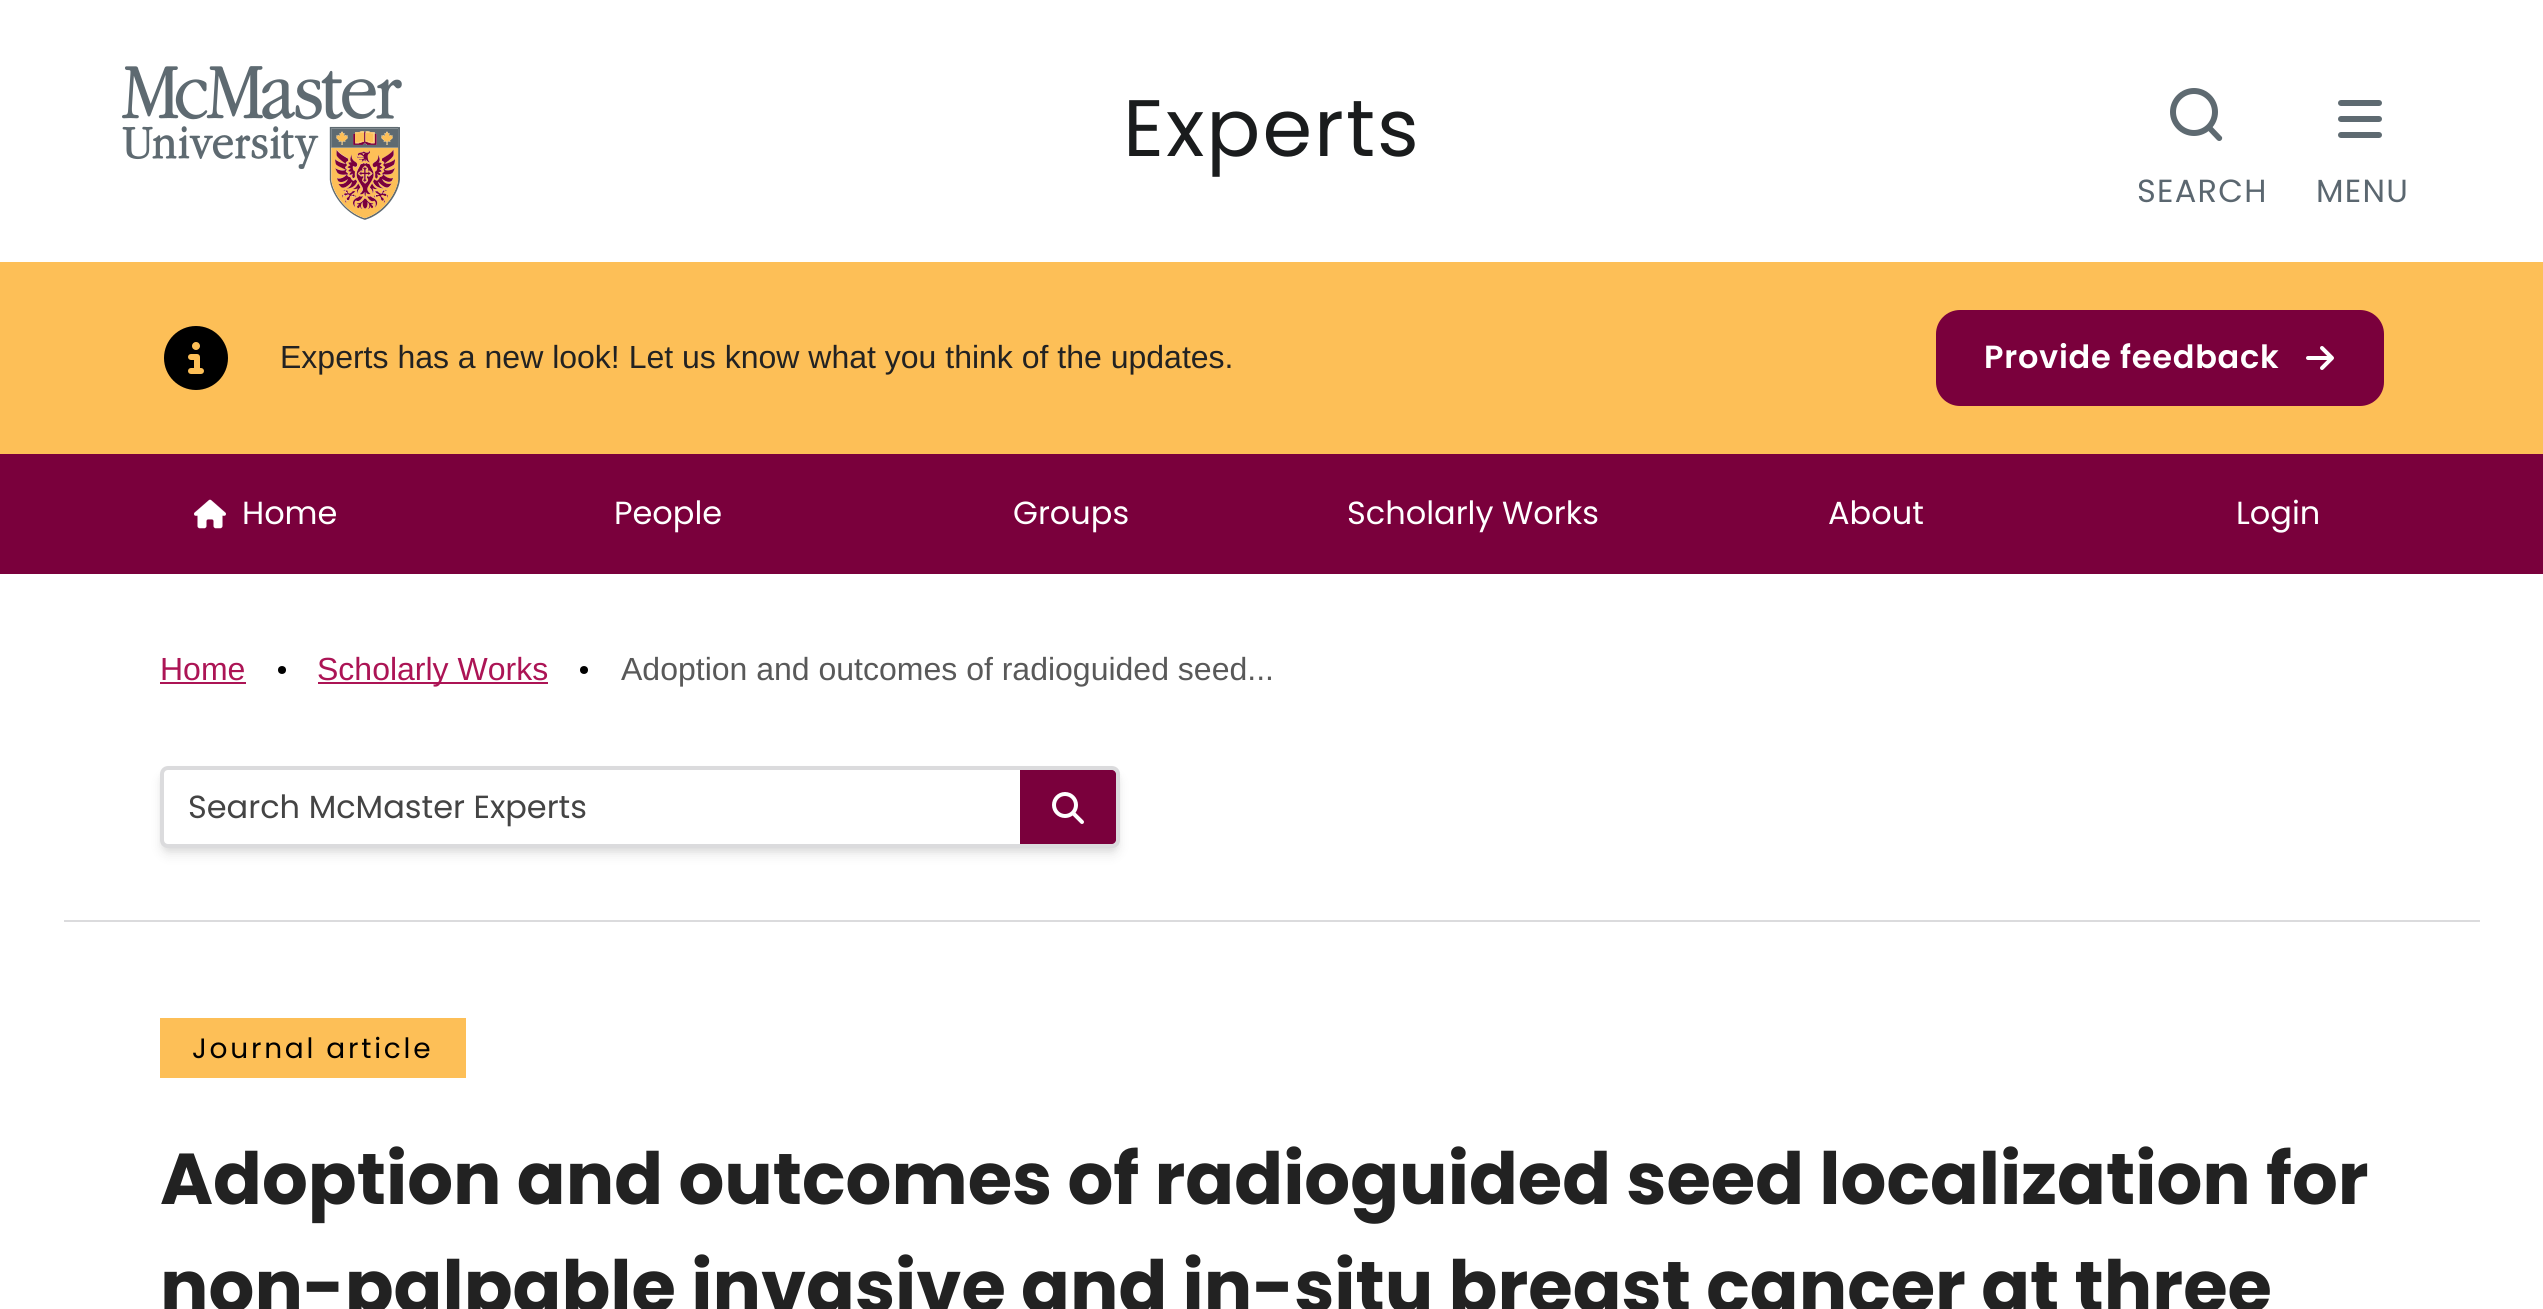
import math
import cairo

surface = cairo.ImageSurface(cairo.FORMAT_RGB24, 2543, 1309)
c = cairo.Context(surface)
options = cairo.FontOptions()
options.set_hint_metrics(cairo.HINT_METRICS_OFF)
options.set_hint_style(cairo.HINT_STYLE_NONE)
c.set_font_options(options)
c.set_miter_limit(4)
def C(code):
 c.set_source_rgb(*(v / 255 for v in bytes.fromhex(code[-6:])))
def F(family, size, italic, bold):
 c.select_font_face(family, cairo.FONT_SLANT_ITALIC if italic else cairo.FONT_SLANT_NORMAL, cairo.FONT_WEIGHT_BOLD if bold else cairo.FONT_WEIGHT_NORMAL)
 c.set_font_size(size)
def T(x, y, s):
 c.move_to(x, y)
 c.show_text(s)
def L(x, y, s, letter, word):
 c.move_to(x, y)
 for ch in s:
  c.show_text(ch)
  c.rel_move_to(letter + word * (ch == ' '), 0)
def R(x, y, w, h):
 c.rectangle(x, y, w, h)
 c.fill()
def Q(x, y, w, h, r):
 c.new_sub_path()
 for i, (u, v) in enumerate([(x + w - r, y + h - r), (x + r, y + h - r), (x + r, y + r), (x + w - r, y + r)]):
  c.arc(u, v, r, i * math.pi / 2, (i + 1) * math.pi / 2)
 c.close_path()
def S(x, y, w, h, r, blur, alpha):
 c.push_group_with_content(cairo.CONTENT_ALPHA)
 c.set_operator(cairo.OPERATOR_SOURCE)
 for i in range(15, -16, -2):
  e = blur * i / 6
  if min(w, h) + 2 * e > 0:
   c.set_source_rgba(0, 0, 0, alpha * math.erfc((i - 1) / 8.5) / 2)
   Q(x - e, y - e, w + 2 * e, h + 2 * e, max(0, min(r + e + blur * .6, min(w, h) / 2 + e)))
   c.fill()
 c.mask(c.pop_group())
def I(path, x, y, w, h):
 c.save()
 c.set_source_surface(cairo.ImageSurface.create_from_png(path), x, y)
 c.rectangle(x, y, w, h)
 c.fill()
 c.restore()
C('ffffff')
c.paint()
I('1.png',122,66,280,154)
F('Poppins',80,0,0)
C('1a1c1d')
L(1123,156,'Experts',2,0)
c.new_path()
c.arc(2194,112,21,0,2 * math.pi)
C('5e6a71')
c.set_line_width(6)
c.stroke()
c.new_path()
c.move_to(2211.5,126)
c.line_to(2222,137)
c.curve_to(2223,140,2219.5,142.5,2217,140)
c.line_to(2207,129.5)
c.curve_to(2205,127,2209,123.5,2211.5,126)
c.close_path()
c.fill()
F('Poppins',32,0,0)
C('5b6770')
L(2137,202,'SEARCH',1.25,0)
C('5e6a71')
Q(2338,116,44,6,3)
c.fill()
Q(2338,100,44,6,3)
c.fill()
Q(2338,132,44,6,3)
c.fill()
C('5b6770')
L(2316,202,'MENU',1.25,0)
C('fdbf57')
R(0,262,2543,192)
I('2.png',164,326,64,64)
F('Liberation Sans',32,0,0)
C('222222')
T(280,368,'Experts has a new look! Let us know what you think of the updates.')
C('7a003c')
Q(1936,310,448,96,24)
c.fill()
F('Poppins SemiBold',32,0,0)
C('ffffff')
L(1984,368,'Provide feedback',.75,0)
I('3.png',2306,346,28,24)
C('7a003c')
R(0,454,2543,120)
I('4.png',194,499,32,30)
F('Poppins',32,0,0)
C('ffffff')
T(242,524,'Home')
T(614,524,'People')
T(1013,524,'Groups')
T(1347,524,'Scholarly Works')
T(1828,524,'About')
T(2236,524,'Login')
F('Liberation Sans',32,0,0)
C('ac1455')
T(160,680,'Home')
R(160,682,86,2)
C('000000')
c.new_path()
c.arc(282,670,4,0,2 * math.pi)
c.fill()
C('ac1455')
R(318,682,230,2)
T(317,680,'Scholarly Works')
C('000000')
c.new_path()
c.arc(584,670,4,0,2 * math.pi)
c.fill()
C('595959')
T(621,680,'Adoption and outcomes of radioguided seed...')
C('000000')
S(164,774,952,74,4,4,.1)
S(162,776,956,78,6,6,.1)
C('ffffff')
Q(162,768,956,78,6)
c.fill_preserve()
C('dbdbdd')
c.set_line_width(4)
c.stroke()
F('Poppins',32,0,0)
C('444444')
T(188,818,'Search McMaster Experts')
C('7a003c')
c.new_path()
c.move_to(1020,770)
c.line_to(1112,770)
c.curve_to(1114,770,1116,772,1116,774)
c.line_to(1116,840)
c.curve_to(1116,842,1114,844,1112,844)
c.line_to(1020,844)
c.close_path()
c.fill()
I('5.png',1052,792,32,32)
C('dbdbdd')
R(64,920,2416,2)
C('fdbf57')
R(160,1018,306,60)
F('Poppins',28,0,0)
C('000000')
L(192,1058,'Journal article',2.75,0)
F('Poppins',72,0,1)
C('222222')
T(160,1204,'Adoption and outcomes of radioguided seed localization for')
T(160,1312,'non-palpable invasive and in-situ breast cancer at three')
surface.write_to_png('o.png')
